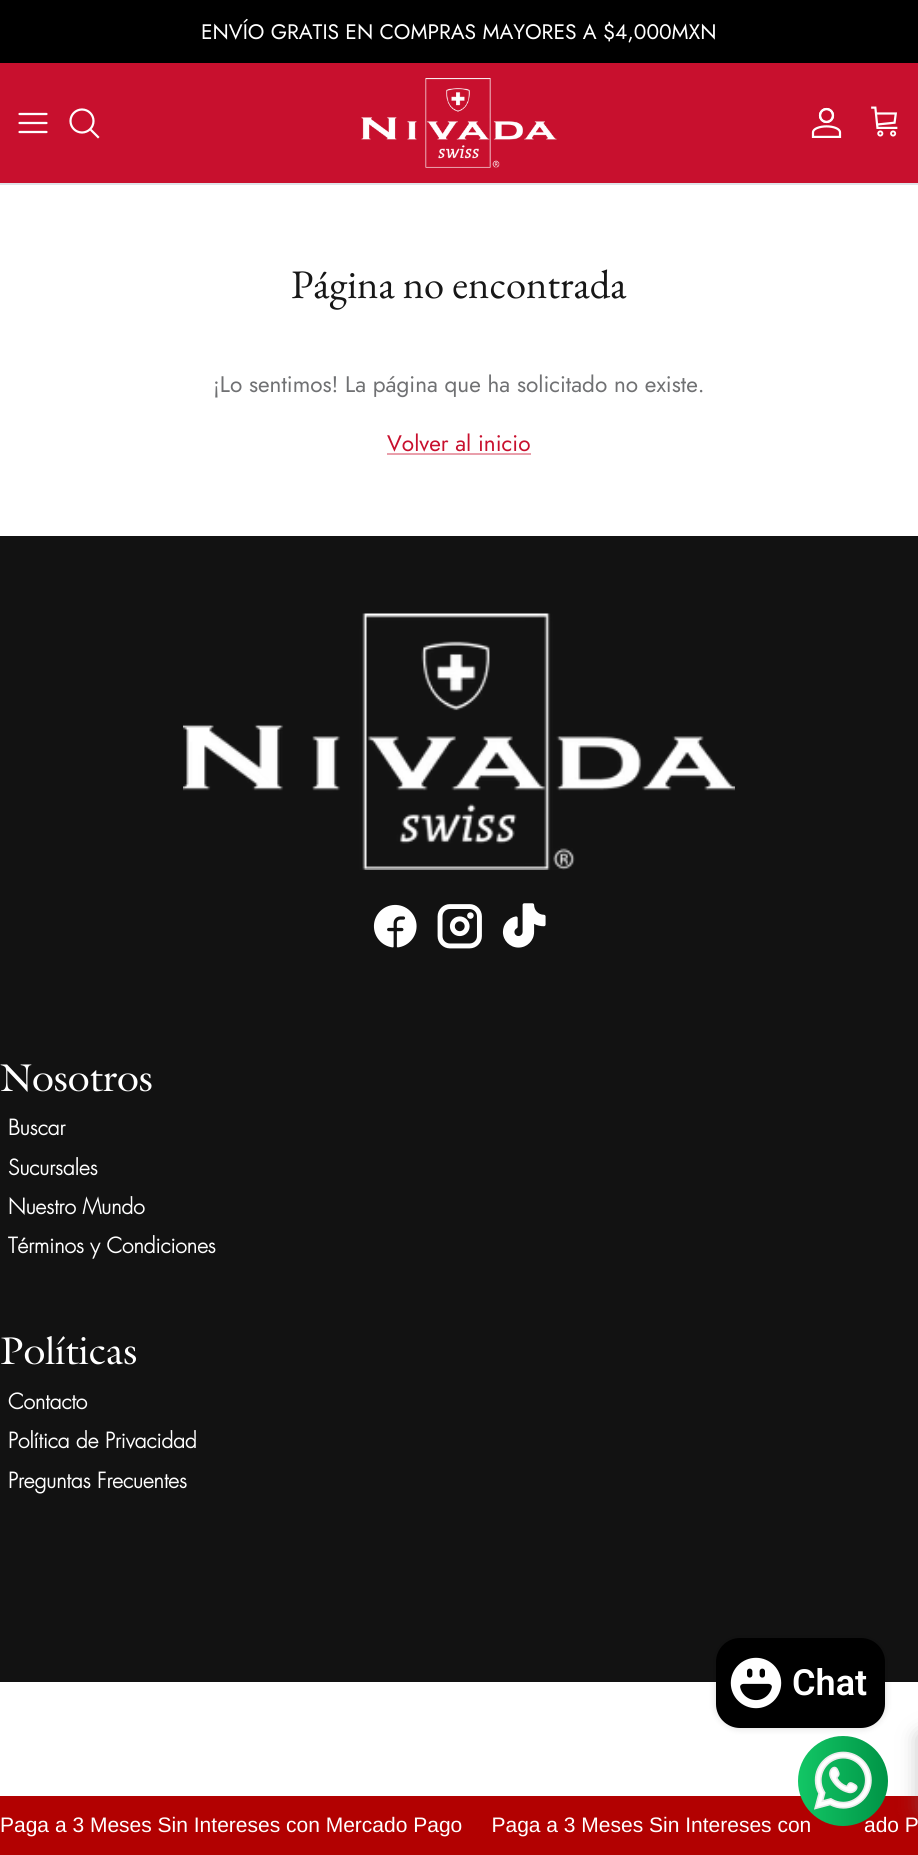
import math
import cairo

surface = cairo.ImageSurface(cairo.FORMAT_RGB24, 918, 1855)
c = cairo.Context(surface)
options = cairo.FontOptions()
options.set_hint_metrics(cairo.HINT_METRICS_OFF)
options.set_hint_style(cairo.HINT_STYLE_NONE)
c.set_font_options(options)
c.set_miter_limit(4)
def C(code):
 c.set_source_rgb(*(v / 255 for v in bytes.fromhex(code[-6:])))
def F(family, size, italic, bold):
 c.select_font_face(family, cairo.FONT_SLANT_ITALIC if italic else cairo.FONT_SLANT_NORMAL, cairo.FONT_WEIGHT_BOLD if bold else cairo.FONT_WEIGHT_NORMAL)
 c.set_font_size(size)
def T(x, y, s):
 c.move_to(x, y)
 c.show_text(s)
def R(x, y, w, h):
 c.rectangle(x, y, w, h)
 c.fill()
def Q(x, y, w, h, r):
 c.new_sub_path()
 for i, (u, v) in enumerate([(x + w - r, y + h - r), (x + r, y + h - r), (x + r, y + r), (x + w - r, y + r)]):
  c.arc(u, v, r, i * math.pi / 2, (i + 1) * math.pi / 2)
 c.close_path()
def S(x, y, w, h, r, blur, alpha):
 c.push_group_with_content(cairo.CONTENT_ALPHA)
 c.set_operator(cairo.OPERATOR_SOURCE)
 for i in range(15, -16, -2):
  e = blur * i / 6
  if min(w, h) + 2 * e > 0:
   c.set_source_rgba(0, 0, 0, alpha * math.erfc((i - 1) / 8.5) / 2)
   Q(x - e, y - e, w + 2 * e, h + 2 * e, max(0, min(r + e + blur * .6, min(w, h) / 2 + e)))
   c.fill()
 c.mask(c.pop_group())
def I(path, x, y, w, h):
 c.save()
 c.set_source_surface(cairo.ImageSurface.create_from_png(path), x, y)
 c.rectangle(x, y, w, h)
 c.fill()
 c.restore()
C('ffffff')
c.paint()
C('000000')
R(0,0,918,63)
F('Jost',21,0,0)
C('ffffff')
T(201,39,'ENVÍO GRATIS EN COMPRAS MAYORES A $4,000MXN')
C('c8102e')
R(0,63,918,120)
C('dfe3e8')
R(0,183,918,2)
c.new_path()
c.move_to(19.5,123)
c.line_to(46.5,123)
c.move_to(19.5,114)
c.line_to(46.5,114)
c.move_to(19.5,132)
c.line_to(46.5,132)
C('ffffff')
c.set_line_width(2.2)
c.set_line_cap(cairo.LINE_CAP_ROUND)
c.set_line_join(cairo.LINE_JOIN_ROUND)
c.stroke()
c.arc(82,121,11.5,0,2 * math.pi)
c.set_line_cap(cairo.LINE_CAP_BUTT)
c.set_line_join(cairo.LINE_JOIN_MITER)
c.stroke()
c.new_path()
c.move_to(91.5,130.5)
c.line_to(98,137)
c.set_line_cap(cairo.LINE_CAP_SQUARE)
c.stroke()
I('1.png',361,78,196,90)
I('2.png',811,107,31,31)
I('3.png',871,106,27,31)
F('EB Garamond',40.5,0,0)
C('171717')
T(291,298,'Página no encontrada')
F('Jost',22.5,0,0)
C('707173')
T(213,392,'¡Lo sentimos! La página que ha solicitado no existe.')
C('c8102e')
T(387,451,'Volver al inicio')
C('e99fab')
R(387,453,144,2)
C('121212')
R(0,536,918,1146)
I('4.png',183,613,552,257)
I('5.png',373,904,44,44)
I('6.png',437,904,45,45)
I('7.png',502,903,44,45)
F('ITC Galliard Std',39,0,0)
C('ffffff')
T(0,1091,'Nosotros')
F('Futura',21,0,1)
T(8,1135,'Buscar')
T(8,1175,'Sucursales')
T(8,1214,'Nuestro Mundo')
T(8,1253,'Términos y Condiciones')
F('ITC Galliard Std',39,0,0)
T(0,1364,'Políticas')
F('Futura',21,0,1)
T(8,1409,'Contacto')
T(8,1448,'Política de Privacidad')
T(8,1488,'Preguntas Frecuentes')
C('b20101')
R(0,1796,918,59)
C('757575')
S(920,1736,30,75,0,10.5,.5)
F('Liberation Sans',21,0,0)
C('ffffff')
T(0,1832,'Paga a 3 Meses Sin Intereses con Mercado Pago     Paga a 3 Meses Sin Intereses con')
T(864,1832,'ado P')
gradient = cairo.LinearGradient(798,1781,888,1781)
gradient.add_color_stop_rgba(.01,0.071,0.776,0.396,1)
gradient.add_color_stop_rgba(1,0,0.58,0.275,1)
c.set_source(gradient)
c.new_path()
c.arc(843,1781,45,0,2 * math.pi)
c.fill()
C('000000')
S(716,1638,169,90,24,4,.15)
C('000000')
Q(716,1638,169,90,24)
c.fill()
I('8.png',730,1657,52,52)
F('Roboto SemiBold',36,0,0)
C('ffffff')
T(792,1695,'Chat')
I('9.png',814,1751,58,59)
surface.write_to_png('o.png')
